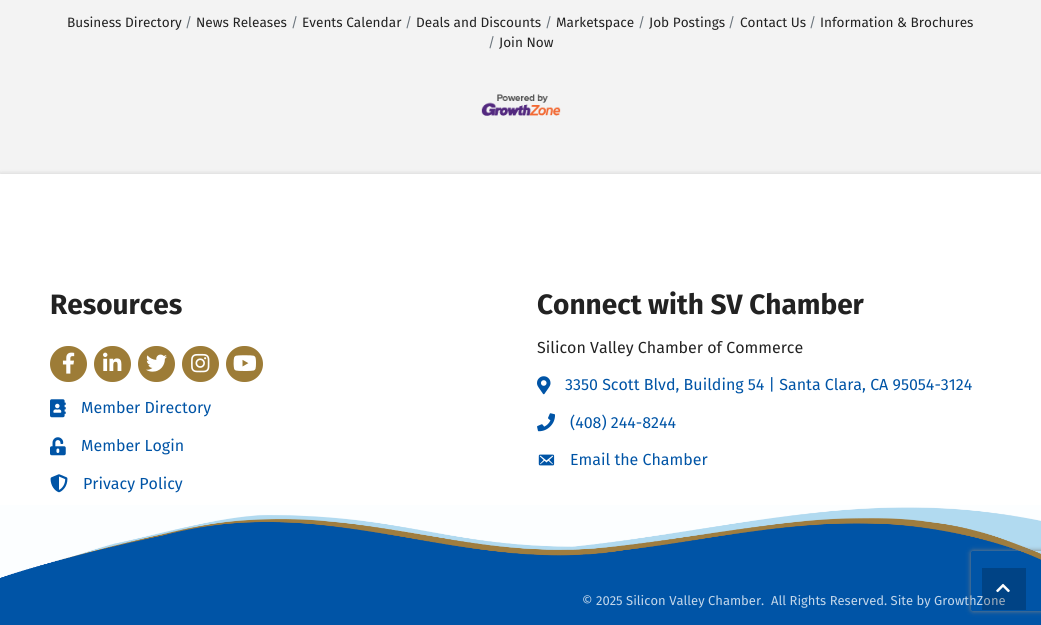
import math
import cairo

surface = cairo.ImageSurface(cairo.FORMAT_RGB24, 1041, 625)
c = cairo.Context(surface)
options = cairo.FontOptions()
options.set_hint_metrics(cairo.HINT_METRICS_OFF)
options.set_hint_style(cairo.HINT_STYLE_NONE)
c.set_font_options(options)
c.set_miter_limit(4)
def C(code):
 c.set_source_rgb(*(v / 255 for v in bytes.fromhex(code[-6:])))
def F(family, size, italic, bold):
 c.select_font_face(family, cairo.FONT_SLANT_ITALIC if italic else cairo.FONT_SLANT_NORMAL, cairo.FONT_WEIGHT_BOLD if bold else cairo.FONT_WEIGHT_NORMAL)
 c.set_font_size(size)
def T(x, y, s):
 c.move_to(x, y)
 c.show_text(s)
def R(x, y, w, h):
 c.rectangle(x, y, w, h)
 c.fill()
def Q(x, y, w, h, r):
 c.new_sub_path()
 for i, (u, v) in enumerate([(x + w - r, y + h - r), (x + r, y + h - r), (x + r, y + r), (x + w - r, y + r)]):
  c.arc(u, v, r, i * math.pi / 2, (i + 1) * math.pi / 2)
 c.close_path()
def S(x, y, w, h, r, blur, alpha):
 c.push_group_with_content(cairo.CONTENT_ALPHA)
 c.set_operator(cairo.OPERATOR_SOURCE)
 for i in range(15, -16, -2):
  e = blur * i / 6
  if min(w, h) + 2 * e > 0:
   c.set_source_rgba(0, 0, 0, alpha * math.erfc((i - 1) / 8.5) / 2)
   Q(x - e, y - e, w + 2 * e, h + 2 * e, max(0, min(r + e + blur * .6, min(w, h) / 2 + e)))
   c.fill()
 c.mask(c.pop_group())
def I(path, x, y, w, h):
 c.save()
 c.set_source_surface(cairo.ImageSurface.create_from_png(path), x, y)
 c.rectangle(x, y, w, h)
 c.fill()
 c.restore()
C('f3f3f3')
c.paint()
F('Fira Sans',13.6,0,0)
C('222222')
T(67,27,'Business Directory')
C('6c757d')
T(185,27,'/')
C('222222')
T(196,27,'News Releases')
C('6c757d')
T(291,27,'/')
C('222222')
T(302,27,'Events Calendar')
C('6c757d')
T(405,27,'/')
C('222222')
T(416,27,'Deals and Discounts')
C('6c757d')
T(545,27,'/')
C('222222')
T(556,27,'Marketspace')
C('6c757d')
T(638,27,'/')
C('222222')
T(649,27,'Job Postings')
C('6c757d')
T(728,27,'/')
C('222222')
T(740,27,'Contact Us')
C('6c757d')
T(809,27,'/')
C('222222')
T(820,27,'Information & Brochures')
C('6c757d')
T(488,47,'/')
C('222222')
T(499,47,'Join Now')
I('1.png',481,94,80,22)
C('000000')
S(0,174,1041,331,0,2.5,.15)
C('ffffff')
R(0,174,1041,331)
F('Fira Sans',28,0,1)
C('222222')
T(50,314,'Resources')
C('9d7c37')
Q(50,346,37,36,18)
c.fill()
I('2.png',62,352,13,22)
Q(94,346,37,36,18)
c.fill()
I('3.png',103,352,19,19)
Q(138,346,37,36,18)
c.fill()
I('4.png',146,354,21,18)
Q(182,346,37,36,18)
c.fill()
I('5.png',191,353,19,20)
Q(226,346,37,36,18)
c.fill()
I('6.png',233,355,23,16)
I('7.png',50,399,16,19)
F('Fira Sans',16,0,0)
C('0054a6')
T(81,413,'Member Directory')
I('8.png',50,437,16,19)
T(81,451,'Member Login')
I('9.png',50,474,18,19)
T(83,489,'Privacy Policy')
F('Fira Sans',28,0,1)
C('222222')
T(537,314,'Connect with SV Chamber')
F('Fira Sans',16,0,0)
T(537,353,'Silicon Valley Chamber of Commerce')
I('10.png',537,376,14,19)
C('0054a6')
T(565,390,'3350 Scott Blvd, Building 54 | Santa Clara, CA 95054-3124')
I('11.png',537,413,18,19)
T(570,428,'(408) 244-8244')
I('12.png',538,454,17,12)
T(570,465,'Email the Chamber')
R(0,578,1041,47)
I('13.png',0,505,1041,73)
F('Fira Sans',13,0,0)
C('c2d6ea')
T(582,605,'© 2025 Silicon Valley Chamber.')
T(771,605,'All Rights Reserved. Site by GrowthZone')
c.save()
c.set_fill_rule(cairo.FILL_RULE_EVEN_ODD)
c.new_path()
c.move_to(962,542)
c.line_to(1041,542)
c.line_to(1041,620)
c.line_to(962,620)
c.close_path()
c.move_to(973,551)
c.line_to(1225,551)
c.curve_to(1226,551,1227,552,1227,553)
c.line_to(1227,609)
c.curve_to(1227,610,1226,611,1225,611)
c.line_to(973,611)
c.curve_to(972,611,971,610,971,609)
c.line_to(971,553)
c.curve_to(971,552,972,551,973,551)
c.close_path()
c.clip()
C('808080')
S(971,551,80,60,2,2.5,1)
c.restore()
c.set_source_rgba(0,0,0,0.2)
R(982,568,44,42)
I('14.png',996,583,14,10)
surface.write_to_png('o.png')
